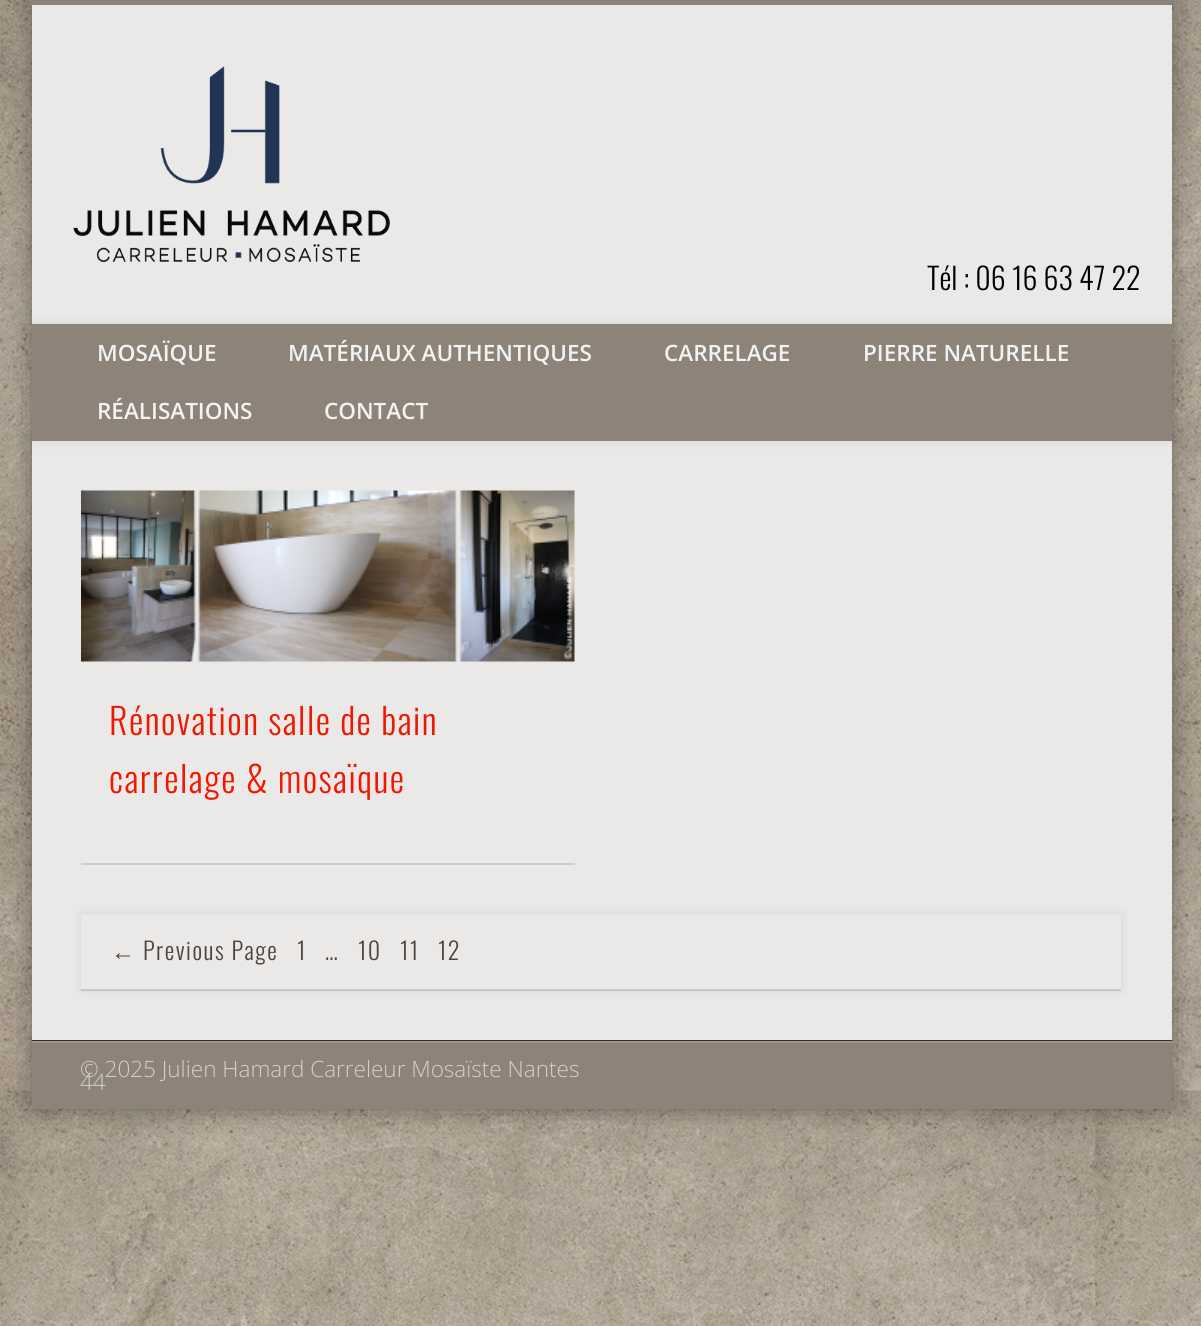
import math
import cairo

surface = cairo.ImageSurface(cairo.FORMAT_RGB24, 1201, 1326)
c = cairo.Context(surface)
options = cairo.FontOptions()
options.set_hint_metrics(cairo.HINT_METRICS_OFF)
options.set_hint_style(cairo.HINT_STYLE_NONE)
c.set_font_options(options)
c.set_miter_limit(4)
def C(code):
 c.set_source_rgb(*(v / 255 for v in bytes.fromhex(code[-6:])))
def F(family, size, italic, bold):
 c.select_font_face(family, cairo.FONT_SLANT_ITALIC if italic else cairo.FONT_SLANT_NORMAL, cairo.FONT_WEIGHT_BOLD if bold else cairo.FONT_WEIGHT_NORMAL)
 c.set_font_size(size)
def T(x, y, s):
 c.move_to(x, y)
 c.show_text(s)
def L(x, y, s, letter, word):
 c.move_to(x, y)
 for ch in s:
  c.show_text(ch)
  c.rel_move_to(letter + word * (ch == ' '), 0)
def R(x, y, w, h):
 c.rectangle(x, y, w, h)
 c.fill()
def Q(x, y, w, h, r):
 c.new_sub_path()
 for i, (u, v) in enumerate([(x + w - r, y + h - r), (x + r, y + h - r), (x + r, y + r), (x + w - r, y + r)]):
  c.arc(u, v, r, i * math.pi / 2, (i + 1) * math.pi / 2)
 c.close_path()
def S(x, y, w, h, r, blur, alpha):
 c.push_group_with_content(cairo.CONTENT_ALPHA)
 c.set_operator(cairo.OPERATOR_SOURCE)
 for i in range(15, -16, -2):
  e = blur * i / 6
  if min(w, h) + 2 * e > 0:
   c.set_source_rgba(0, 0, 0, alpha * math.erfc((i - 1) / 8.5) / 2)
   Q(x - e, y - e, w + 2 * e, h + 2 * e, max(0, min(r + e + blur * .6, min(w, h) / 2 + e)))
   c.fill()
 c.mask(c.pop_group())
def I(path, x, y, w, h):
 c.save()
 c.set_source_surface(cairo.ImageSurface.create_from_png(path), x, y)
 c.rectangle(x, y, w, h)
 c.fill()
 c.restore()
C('ffffff')
c.paint()
I('1.png',0,0,1201,1326)
C('000000')
S(32,0,1140,1109,0,13.5,.4)
C('eae9e8')
R(32,5,1140,1035)
C('8e8379')
R(32,0,1140,5)
I('2.png',73,66,317,197)
F('Oswald Light',30,0,0)
C('000000')
T(927,290,'Tél : 06 16 63 47 22')
c.save()
c.rectangle(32,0,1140,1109)
c.clip()
C('000000')
S(32,324,1140,117,0,5,.1)
c.restore()
C('8e8379')
R(32,324,1140,117)
F('Open Sans SemiBold',22.5,0,0)
C('f2f2f2')
T(97,361,'MOSAÏQUE')
T(288,361,'MATÉRIAUX AUTHENTIQUES')
T(664,361,'CARRELAGE')
T(863,361,'PIERRE NATURELLE')
T(97,419,'RÉALISATIONS')
T(324,419,'CONTACT')
C('cccbca')
R(81,863,494,2)
I('3.png',81,490,494,172)
F('Oswald Light',36,0,0)
C('f11700')
L(109,735,'Rénovation salle de bain',1.5,0)
L(109,793,'carrelage & mosaïque',1.5,0)
C('000000')
S(81,914,1040,76,0,4,.1)
C('eae9e8')
R(81,914,1040,76)
c.set_source_rgba(0,0,0,0.13)
R(81,989,1040,2)
F('Liberation Sans',24,0,0)
C('49443f')
L(111,960,'←',1.5,0)
F('Oswald Light',24,0,0)
L(143,960,'Previous Page',1.5,0)
L(297,960,'1',1.5,0)
L(325,960,'…',1.5,0)
L(358,960,'10',1.5,0)
L(400,960,'11',1.5,0)
L(438,960,'12',1.5,0)
C('313131')
R(32,1040,1140,1)
C('8e8379')
R(32,1043,1140,66)
C('9e958c')
R(32,1041,1140,2)
F('Open Sans Light',22.5,0,0)
C('d3d0cf')
T(80,1077,'© 2025 Julien Hamard Carreleur Mosaïste Nantes')
T(80,1090,'44')
surface.write_to_png('o.png')
